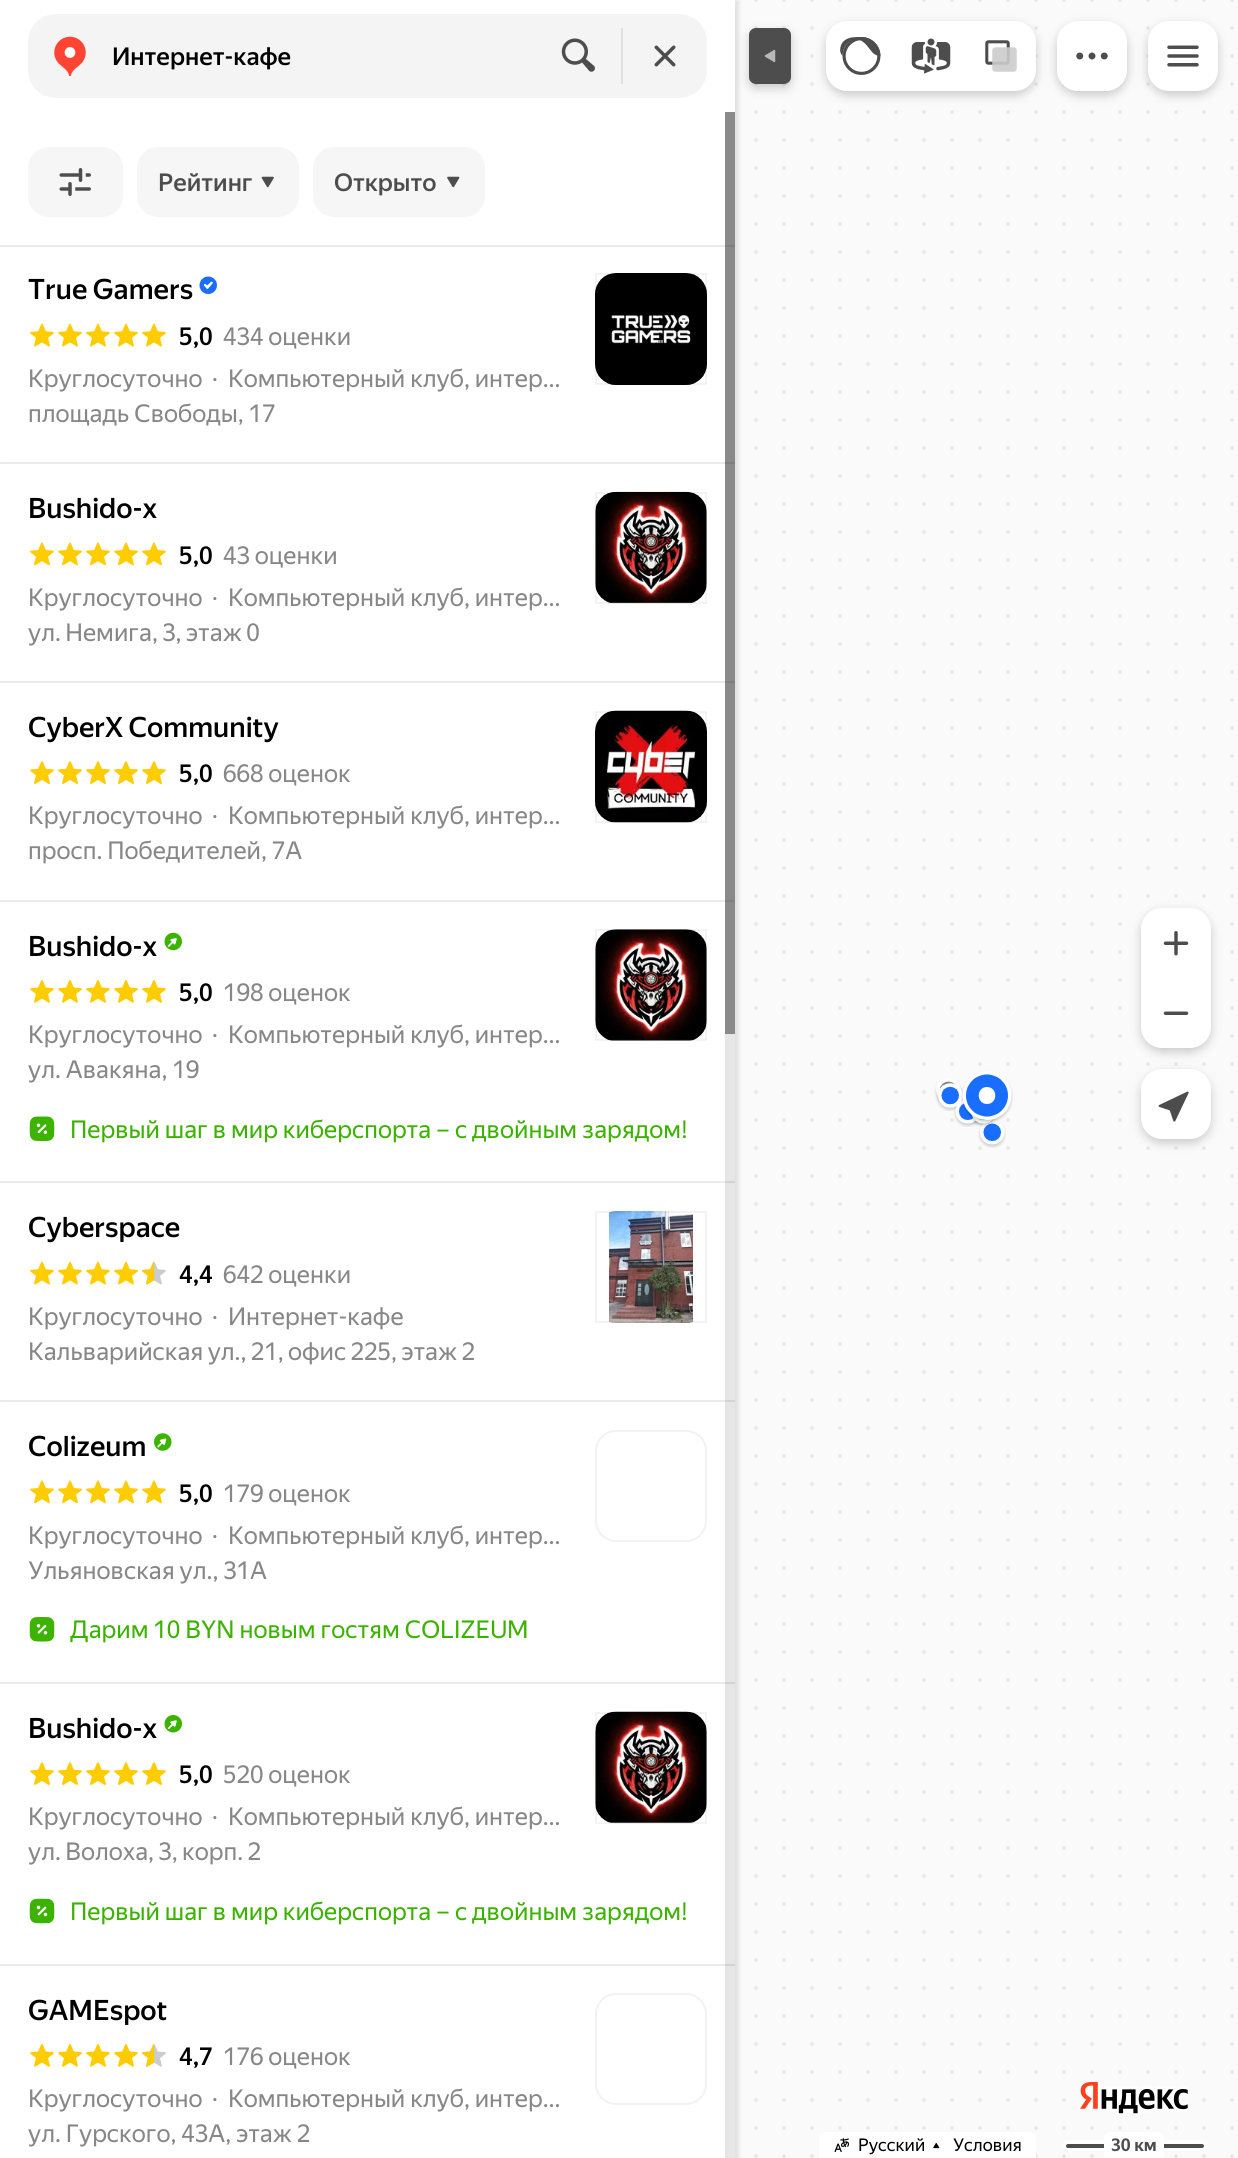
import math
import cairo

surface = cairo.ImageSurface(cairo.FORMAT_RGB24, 1238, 2158)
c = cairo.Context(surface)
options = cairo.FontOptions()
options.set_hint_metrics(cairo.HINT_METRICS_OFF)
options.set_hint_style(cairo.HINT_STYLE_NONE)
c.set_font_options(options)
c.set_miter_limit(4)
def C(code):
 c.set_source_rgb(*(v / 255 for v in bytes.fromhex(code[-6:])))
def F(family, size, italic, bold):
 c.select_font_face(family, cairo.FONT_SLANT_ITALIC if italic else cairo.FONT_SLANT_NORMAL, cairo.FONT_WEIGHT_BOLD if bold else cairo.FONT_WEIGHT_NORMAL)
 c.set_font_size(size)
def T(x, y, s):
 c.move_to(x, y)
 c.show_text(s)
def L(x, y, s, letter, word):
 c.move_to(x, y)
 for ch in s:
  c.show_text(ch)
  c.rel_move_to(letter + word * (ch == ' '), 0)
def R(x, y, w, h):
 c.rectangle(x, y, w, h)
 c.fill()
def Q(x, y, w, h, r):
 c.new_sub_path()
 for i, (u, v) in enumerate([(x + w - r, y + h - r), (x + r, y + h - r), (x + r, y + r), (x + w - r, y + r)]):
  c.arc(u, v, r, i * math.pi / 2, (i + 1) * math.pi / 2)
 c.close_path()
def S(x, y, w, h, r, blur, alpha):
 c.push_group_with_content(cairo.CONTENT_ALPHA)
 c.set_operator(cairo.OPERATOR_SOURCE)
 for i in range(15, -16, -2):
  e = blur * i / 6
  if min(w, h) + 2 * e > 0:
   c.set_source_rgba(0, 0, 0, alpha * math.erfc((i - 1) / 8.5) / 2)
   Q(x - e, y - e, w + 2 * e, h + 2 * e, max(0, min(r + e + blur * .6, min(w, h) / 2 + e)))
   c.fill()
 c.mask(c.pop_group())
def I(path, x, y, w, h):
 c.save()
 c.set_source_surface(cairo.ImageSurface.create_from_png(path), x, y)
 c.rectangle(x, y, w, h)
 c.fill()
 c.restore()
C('ffffff')
c.paint()
I('1.png',735,0,503,2158)
C('000000')
S(4,0,735,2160,0,2,.1)
S(749,32,42,56,7,5,.2)
C('ffffff')
R(1,0,734,2158)
C('f4f4f4')
Q(28,14,679,84,28)
c.fill()
I('2.png',54,36,32,41)
F('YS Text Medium',24.5,0,0)
C('000000')
T(112,65,'Интернет-кафе')
I('3.png',561,38,34,34)
C('e0e0e0')
R(621,28,2,56)
I('4.png',654,45,22,22)
C('000000')
S(826,25,210,70,21,5,.2)
C('ffffff')
c.new_path()
c.move_to(847,21)
c.line_to(896,21)
c.line_to(896,91)
c.line_to(847,91)
c.curve_to(835.5,91,826,81.5,826,70)
c.line_to(826,42)
c.curve_to(826,30.5,835.5,21,847,21)
c.close_path()
c.fill()
I('5.png',840,37,41,38)
R(896,21,70,70)
I('6.png',911,38,40,36)
c.new_path()
c.move_to(966,21)
c.line_to(1015,21)
c.curve_to(1026.5,21,1036,30.5,1036,42)
c.line_to(1036,70)
c.curve_to(1036,81.5,1026.5,91,1015,91)
c.line_to(966,91)
c.close_path()
c.fill()
I('7.png',985,40,32,32)
C('000000')
S(1057,25,70,70,21,5,.2)
C('ffffff')
Q(1057,21,70,70,21)
c.fill()
I('8.png',1076,52,32,8)
C('000000')
S(1148,25,70,70,21,5,.2)
C('ffffff')
Q(1148,21,70,70,21)
c.fill()
I('9.png',1167,45,32,22)
C('000000')
S(1141,912,70,140,21,5,.2)
C('ffffff')
c.new_path()
c.move_to(1162,908)
c.line_to(1190,908)
c.curve_to(1201.5,908,1211,917.5,1211,929)
c.line_to(1211,978)
c.line_to(1141,978)
c.line_to(1141,929)
c.curve_to(1141,917.5,1150.5,908,1162,908)
c.close_path()
c.fill()
I('10.png',1163,931,26,25)
c.new_path()
c.move_to(1141,978)
c.line_to(1211,978)
c.line_to(1211,1027)
c.curve_to(1211,1038.5,1201.5,1048,1190,1048)
c.line_to(1162,1048)
c.curve_to(1150.5,1048,1141,1038.5,1141,1027)
c.close_path()
c.fill()
I('11.png',1163,1011,26,4)
C('000000')
S(1141,1073,70,70,21,5,.2)
C('ffffff')
Q(1141,1069,70,70,21)
c.fill()
I('12.png',1158,1091,31,31)
C('4d4d4d')
Q(749,28,42,56,7)
c.fill()
I('13.png',764,49,12,14)
C('ebebeb')
R(0,245,735,2)
C('f6f6f6')
Q(28,147,95,70,21)
c.fill()
I('14.png',59,168,32,28)
Q(137,147,162,70,21)
c.fill()
C('4d4d4d')
T(158,191,'Рейтинг')
I('15.png',261,176,13,12)
C('f6f6f6')
Q(313,147,172,70,21)
c.fill()
C('4d4d4d')
T(334,191,'Открыто')
I('16.png',447,176,13,12)
C('ebebeb')
R(0,462,735,2)
F('YS Text Medium',28,0,0)
C('000000')
T(28,299,'True Gamers')
I('17.png',199,276,18,18)
I('18.png',595,273,112,112)
c.rectangle(596,274,110,110)
c.set_source_rgba(0,0,0,0.05)
c.stroke()
I('19.png',30,323,24,24)
I('19.png',58,323,24,24)
I('19.png',86,323,24,24)
I('19.png',114,323,24,24)
I('19.png',142,323,24,24)
F('YS Text Medium',24.5,0,0)
C('000000')
T(179,345,'5,0')
F('YS Text',24.5,0,0)
C('878787')
T(223,345,'434 оценки')
T(28,387,'Круглосуточно')
T(212,387,'·')
T(228,387,'Компьютерный клуб, интер…')
T(28,422,'площадь Свободы, 17')
C('ebebeb')
R(0,681,735,2)
F('YS Text Medium',28,0,0)
C('000000')
T(28,518,'Bushido-x')
I('20.png',595,491,112,113)
c.rectangle(596,493,110,110)
c.set_source_rgba(0,0,0,0.05)
c.stroke()
I('21.png',30,542,24,24)
I('21.png',58,542,24,24)
I('21.png',86,542,24,24)
I('21.png',114,542,24,24)
I('21.png',142,542,24,24)
F('YS Text Medium',24.5,0,0)
C('000000')
T(179,564,'5,0')
F('YS Text',24.5,0,0)
C('878787')
T(223,564,'43 оценки')
T(28,606,'Круглосуточно')
T(212,606,'·')
T(228,606,'Компьютерный клуб, интер…')
L(28,641,'ул. Немига, 3, этаж 0',0,-.5)
C('ebebeb')
R(0,900,735,2)
F('YS Text Medium',28,0,0)
C('000000')
T(28,737,'CyberX Community')
I('22.png',595,710,112,113)
c.rectangle(596,712,110,110)
c.set_source_rgba(0,0,0,0.05)
c.stroke()
I('23.png',30,761,24,23)
I('23.png',58,761,24,23)
I('23.png',86,761,24,23)
I('23.png',114,761,24,23)
I('23.png',142,761,24,23)
F('YS Text Medium',24.5,0,0)
C('000000')
T(179,782,'5,0')
F('YS Text',24.5,0,0)
C('878787')
T(223,782,'668 оценок')
T(28,824,'Круглосуточно')
T(212,824,'·')
T(228,824,'Компьютерный клуб, интер…')
T(28,859,'просп. Победителей, 7А')
C('ebebeb')
R(0,1181,735,2)
F('YS Text Medium',28,0,0)
C('000000')
T(28,956,'Bushido-x')
I('24.png',164,932,18,19)
I('25.png',595,929,112,112)
c.rectangle(596,930,110,110)
c.set_source_rgba(0,0,0,0.05)
c.stroke()
I('26.png',30,980,24,23)
I('26.png',58,980,24,23)
I('26.png',86,980,24,23)
I('26.png',114,980,24,23)
I('26.png',142,980,24,23)
F('YS Text Medium',24.5,0,0)
C('000000')
T(179,1001,'5,0')
F('YS Text',24.5,0,0)
C('878787')
T(223,1001,'198 оценок')
T(28,1043,'Круглосуточно')
T(212,1043,'·')
T(228,1043,'Компьютерный клуб, интер…')
T(28,1078,'ул. Авакяна, 19')
I('27.png',29,1116,26,25)
C('3cb200')
T(70,1138,'Первый шаг в мир киберспорта – с двойным зарядом!')
C('ebebeb')
R(0,1400,735,2)
F('YS Text Medium',28,0,0)
C('000000')
T(28,1237,'Cyberspace')
I('28.png',609,1211,84,112)
c.rectangle(596,1212,110,110)
c.set_source_rgba(0,0,0,0.05)
c.stroke()
I('19.png',30,1261,24,24)
I('19.png',58,1261,24,24)
I('19.png',86,1261,24,24)
I('19.png',114,1261,24,24)
I('29.png',142,1261,24,24)
F('YS Text Medium',24.5,0,0)
C('000000')
T(179,1283,'4,4')
F('YS Text',24.5,0,0)
C('878787')
T(223,1283,'642 оценки')
T(28,1325,'Круглосуточно')
T(212,1325,'·')
T(228,1325,'Интернет-кафе')
L(28,1360,'Кальварийская ул., 21, офис 225, этаж 2',0,-.5)
C('ebebeb')
R(0,1682,735,2)
F('YS Text Medium',28,0,0)
C('000000')
T(28,1456,'Colizeum')
I('30.png',154,1433,18,18)
Q(596,1431,110,110,20)
C('f2f2f2')
c.stroke()
I('21.png',30,1480,24,24)
I('21.png',58,1480,24,24)
I('21.png',86,1480,24,24)
I('21.png',114,1480,24,24)
I('21.png',142,1480,24,24)
F('YS Text Medium',24.5,0,0)
C('000000')
T(179,1502,'5,0')
F('YS Text',24.5,0,0)
C('878787')
T(223,1502,'179 оценок')
T(28,1544,'Круглосуточно')
T(212,1544,'·')
T(228,1544,'Компьютерный клуб, интер…')
T(28,1579,'Ульяновская ул., 31А')
I('31.png',29,1617,26,25)
C('3cb200')
T(70,1638,'Дарим 10 BYN новым гостям COLIZEUM')
C('ebebeb')
R(0,1964,735,2)
F('YS Text Medium',28,0,0)
C('000000')
T(28,1738,'Bushido-x')
I('32.png',164,1715,18,18)
I('33.png',595,1711,112,113)
c.rectangle(596,1713,110,110)
c.set_source_rgba(0,0,0,0.05)
c.stroke()
I('23.png',30,1762,24,23)
I('23.png',58,1762,24,23)
I('23.png',86,1762,24,23)
I('23.png',114,1762,24,23)
I('23.png',142,1762,24,23)
F('YS Text Medium',24.5,0,0)
C('000000')
T(179,1783,'5,0')
F('YS Text',24.5,0,0)
C('878787')
T(223,1783,'520 оценок')
T(28,1825,'Круглосуточно')
T(212,1825,'·')
T(228,1825,'Компьютерный клуб, интер…')
L(28,1860,'ул. Волоха, 3, корп. 2',0,-.5)
I('34.png',29,1898,26,26)
C('3cb200')
T(70,1920,'Первый шаг в мир киберспорта – с двойным зарядом!')
F('YS Text Medium',28,0,0)
C('000000')
T(28,2020,'GAMEspot')
Q(596,1994,110,110,20)
C('f2f2f2')
c.stroke()
I('26.png',30,2044,24,23)
I('26.png',58,2044,24,23)
I('26.png',86,2044,24,23)
I('26.png',114,2044,24,23)
I('35.png',142,2044,24,23)
F('YS Text Medium',24.5,0,0)
C('000000')
T(179,2065,'4,7')
F('YS Text',24.5,0,0)
C('878787')
T(223,2065,'176 оценок')
T(28,2107,'Круглосуточно')
T(212,2107,'·')
T(228,2107,'Компьютерный клуб, интер…')
T(28,2142,'ул. Гурского, 43А, этаж 2')
c.set_source_rgba(0,0,0,0.1)
R(725,112,10,2046)
c.set_source_rgba(0,0,0,0.4)
R(725,112,10,922)
I('36.png',1080,2082,108,32)
C('ffffff')
c.new_path()
c.move_to(826,2132)
c.line_to(1029,2132)
c.curve_to(1033,2132,1036,2135,1036,2139)
c.line_to(1036,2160)
c.line_to(819,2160)
c.line_to(819,2139)
c.curve_to(819,2135,822,2132,826,2132)
c.close_path()
c.fill()
I('37.png',834,2138,15,14)
F('YS Text',17.5,0,0)
C('000000')
T(858,2151,'Русский')
I('38.png',933,2142,7,7)
T(953,2151,'Условия')
C('fdfdfd')
Q(1062,2140,146,11,5.5)
c.fill()
C('4d4d4d')
Q(1066,2144,138,4,2)
c.fill()
C('ffffff')
c.new_path()
c.move_to(1111,2132)
c.line_to(1157,2132)
c.curve_to(1161,2132,1164,2135,1164,2139)
c.line_to(1164,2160)
c.line_to(1104,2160)
c.line_to(1104,2139)
c.curve_to(1104,2135,1107,2132,1111,2132)
c.close_path()
c.fill()
F('YS Text',17.5,0,1)
C('4d4d4d')
T(1111,2151,'30 км')
I('40.png',977,1071,13,3)
I('41.png',934,1078,29,27)
I('42.png',936,1083,27,28)
I('46.png',971,1120,14,5)
I('43.png',954,1100,24,27)
I('44.png',964,1104,9,12)
I('47.png',978,1120,28,28)
I('45.png',969,1112,28,15)
I('39.png',961,1071,52,53)
C('ffffff')
c.set_fill_rule(cairo.FILL_RULE_EVEN_ODD)
c.new_path()
c.move_to(987,1104)
c.curve_to(998,1104,998,1087,987,1087)
c.curve_to(976,1087,976,1104,987,1104)
c.close_path()
c.fill()
surface.write_to_png('o.png')
